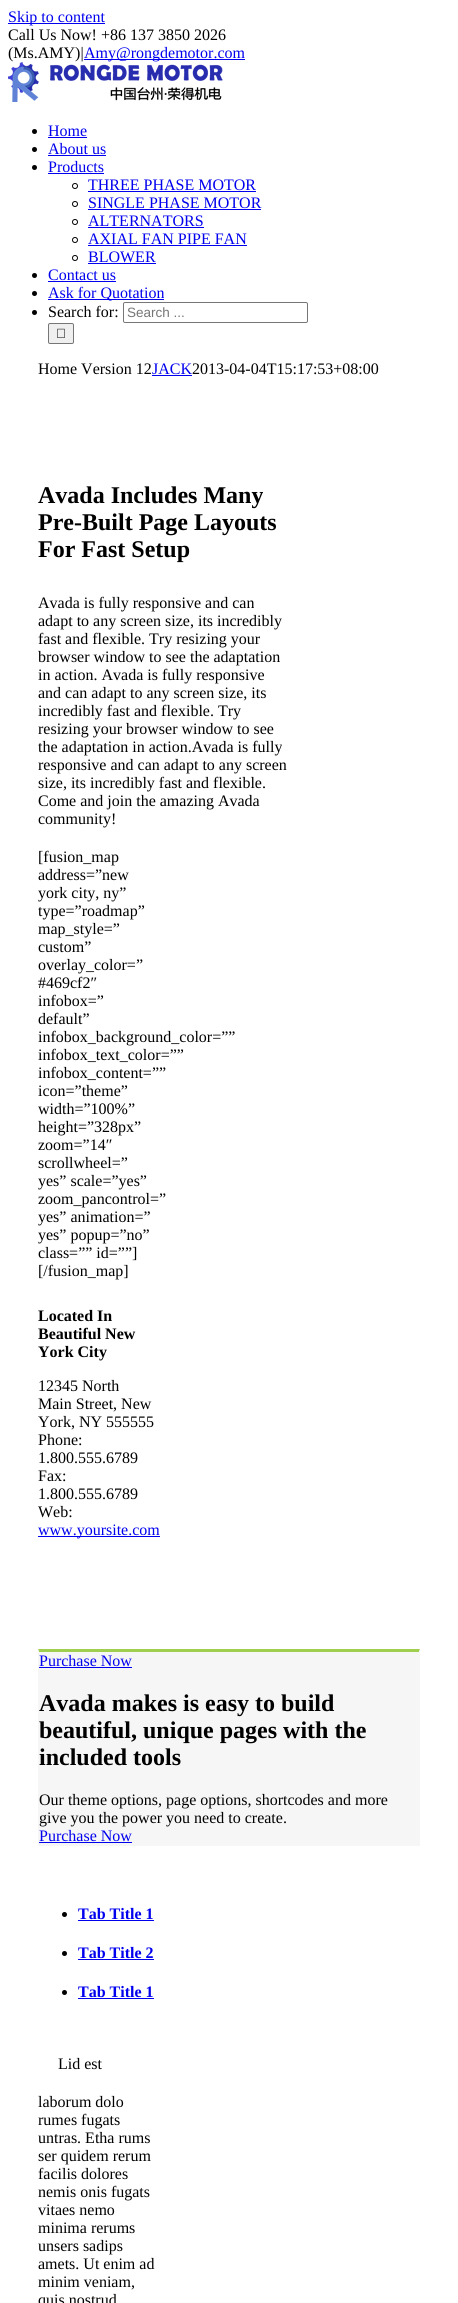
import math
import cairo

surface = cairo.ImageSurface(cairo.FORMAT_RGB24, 458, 2303)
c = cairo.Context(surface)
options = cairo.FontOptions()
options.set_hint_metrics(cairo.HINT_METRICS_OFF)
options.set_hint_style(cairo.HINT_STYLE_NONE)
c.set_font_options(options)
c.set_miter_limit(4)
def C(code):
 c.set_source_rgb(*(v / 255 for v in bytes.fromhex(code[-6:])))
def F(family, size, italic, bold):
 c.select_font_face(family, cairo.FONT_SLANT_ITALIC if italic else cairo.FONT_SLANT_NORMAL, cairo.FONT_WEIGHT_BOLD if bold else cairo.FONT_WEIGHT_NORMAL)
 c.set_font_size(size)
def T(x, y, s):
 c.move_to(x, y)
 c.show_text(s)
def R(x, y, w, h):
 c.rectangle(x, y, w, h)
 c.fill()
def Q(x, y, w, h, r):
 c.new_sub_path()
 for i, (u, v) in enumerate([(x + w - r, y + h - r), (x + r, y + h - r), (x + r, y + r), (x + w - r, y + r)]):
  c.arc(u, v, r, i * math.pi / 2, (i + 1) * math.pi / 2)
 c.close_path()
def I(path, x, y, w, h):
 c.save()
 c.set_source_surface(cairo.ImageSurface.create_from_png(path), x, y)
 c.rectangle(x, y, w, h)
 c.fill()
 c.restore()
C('ffffff')
c.paint()
C('0000ee')
R(8,23,97,1)
F('Liberation Serif',16,0,0)
T(8,22,'Skip to content')
C('000000')
T(8,40,'Call Us Now! +86 137 3850 2026')
T(8,58,'(Ms.AMY)|')
C('0000ee')
R(84,59,161,1)
T(84,58,'Amy@rongdemotor.com')
I('1.png',8,62,215,40)
C('000000')
c.arc(34.5,131.5,2.5,0,2 * math.pi)
c.fill()
C('0000ee')
T(48,136,'Home')
R(48,137,39,1)
C('000000')
c.new_path()
c.arc(34.5,149.5,2.5,0,2 * math.pi)
c.fill()
C('0000ee')
T(48,154,'About us')
R(48,155,58,1)
C('000000')
c.new_path()
c.arc(34.5,167.5,2.5,0,2 * math.pi)
c.fill()
C('0000ee')
T(48,172,'Products')
R(48,173,56,1)
c.new_path()
c.arc(75,186,2.5,0,2 * math.pi)
C('000000')
c.set_line_width(1)
c.stroke()
C('0000ee')
T(88,190,'THREE PHASE MOTOR')
R(88,191,168,1)
c.new_path()
c.arc(75,204,2.5,0,2 * math.pi)
C('000000')
c.stroke()
C('0000ee')
T(88,208,'SINGLE PHASE MOTOR')
R(88,209,173,1)
c.new_path()
c.arc(75,222,2.5,0,2 * math.pi)
C('000000')
c.stroke()
C('0000ee')
T(88,226,'ALTERNATORS')
R(88,227,116,1)
c.new_path()
c.arc(75,240,2.5,0,2 * math.pi)
C('000000')
c.stroke()
C('0000ee')
T(88,244,'AXIAL FAN PIPE FAN')
R(88,245,159,1)
c.new_path()
c.arc(75,258,2.5,0,2 * math.pi)
C('000000')
c.stroke()
C('0000ee')
T(88,262,'BLOWER')
R(88,263,68,1)
C('000000')
c.new_path()
c.arc(34.5,275.5,2.5,0,2 * math.pi)
c.fill()
C('0000ee')
T(48,280,'Contact us')
R(48,281,68,1)
C('000000')
c.new_path()
c.arc(34.5,293.5,2.5,0,2 * math.pi)
c.fill()
C('0000ee')
R(48,299,116,1)
T(48,298,'Ask for Quotation')
C('000000')
c.new_path()
c.arc(34.5,312.5,2.5,0,2 * math.pi)
c.fill()
T(48,317,'Search for:')
Q(123.5,302.5,184,20,1.5)
C('767676')
c.stroke()
F('Liberation Sans',13.5,0,0)
C('757575')
T(127,317,'Search ...')
C('efefef')
Q(48.5,323.5,25,20,1.5)
c.fill_preserve()
C('767676')
c.stroke()
I('2.png',57,328,8,10)
F('Liberation Serif',16,0,0)
C('000000')
T(38,374,'Home Version 12')
C('0000ee')
T(152,374,'JACK')
R(152,375,40,1)
C('000000')
T(192,374,'2013-04-04T15:17:53+08:00')
F('Liberation Serif',24,0,1)
T(38,503,'Avada Includes Many')
T(38,530,'Pre-Built Page Layouts')
T(38,557,'For Fast Setup')
F('Liberation Serif',16,0,0)
T(38,608,'Avada is fully responsive and can')
T(38,626,'adapt to any screen size, its incredibly')
T(38,644,'fast and flexible. Try resizing your')
T(38,662,'browser window to see the adaptation')
T(38,680,'in action. Avada is fully responsive')
T(38,698,'and can adapt to any screen size, its')
T(38,716,'incredibly fast and flexible. Try')
T(38,734,'resizing your browser window to see')
T(38,752,'the adaptation in action.Avada is fully')
T(38,770,'responsive and can adapt to any screen')
T(38,788,'size, its incredibly fast and flexible.')
T(38,806,'Come and join the amazing Avada')
T(38,824,'community!')
T(38,862,'[fusion_map')
T(38,880,'address=”new')
T(38,898,'york city, ny”')
T(38,916,'type=”roadmap”')
T(38,934,'map_style=”')
T(38,952,'custom”')
T(38,970,'overlay_color=”')
T(38,988,'#469cf2″')
T(38,1006,'infobox=”')
T(38,1024,'default”')
T(38,1042,'infobox_background_color=””')
T(38,1060,'infobox_text_color=””')
T(38,1078,'infobox_content=””')
T(38,1096,'icon=”theme”')
T(38,1114,'width=”100%”')
T(38,1132,'height=”328px”')
T(38,1150,'zoom=”14″')
T(38,1168,'scrollwheel=”')
T(38,1186,'yes” scale=”yes”')
T(38,1204,'zoom_pancontrol=”')
T(38,1222,'yes” animation=”')
T(38,1240,'yes” popup=”no”')
T(38,1258,'class=”” id=””]')
T(38,1276,'[/fusion_map]')
F('Liberation Serif',16,0,1)
T(38,1321,'Located In')
T(38,1339,'Beautiful New')
T(38,1357,'York City')
F('Liberation Serif',16,0,0)
T(38,1391,'12345 North')
T(38,1409,'Main Street, New')
T(38,1427,'York, NY 555555')
T(38,1445,'Phone:')
T(38,1463,'1.800.555.6789')
T(38,1481,'Fax:')
T(38,1499,'1.800.555.6789')
T(38,1517,'Web:')
C('0000ee')
R(38,1536,122,1)
T(38,1535,'www.yoursite.com')
C('f6f6f6')
R(39,1652,380,193)
C('a0ce4e')
c.new_path()
c.move_to(38,1649)
c.line_to(420,1649)
c.line_to(419,1652)
c.line_to(39,1652)
c.close_path()
c.fill()
C('f6f6f6')
c.new_path()
c.move_to(420,1649)
c.line_to(420,1846)
c.line_to(419,1845)
c.line_to(419,1652)
c.close_path()
c.fill()
R(38,1845,382,1)
c.new_path()
c.move_to(38,1846)
c.line_to(38,1649)
c.line_to(39,1652)
c.line_to(39,1845)
c.close_path()
c.fill()
C('0000ee')
T(39,1666,'Purchase Now')
R(39,1667,93,1)
F('Liberation Serif',24,0,1)
C('000000')
T(39,1711,'Avada makes is easy to build')
T(39,1738,'beautiful, unique pages with the')
T(39,1765,'included tools')
F('Liberation Serif',16,0,0)
T(39,1805,'Our theme options, page options, shortcodes and more')
T(39,1823,'give you the power you need to create.')
C('0000ee')
T(39,1841,'Purchase Now')
R(39,1842,93,1)
C('000000')
c.new_path()
c.arc(64.5,1914.5,2.5,0,2 * math.pi)
c.fill()
F('Liberation Serif',16,0,1)
C('0000ee')
T(78,1919,'Tab Title 1')
R(78,1920,76,1)
C('000000')
c.new_path()
c.arc(64.5,1953.5,2.5,0,2 * math.pi)
c.fill()
C('0000ee')
T(78,1958,'Tab Title 2')
R(78,1959,76,1)
C('000000')
c.new_path()
c.arc(64.5,1992.5,2.5,0,2 * math.pi)
c.fill()
C('0000ee')
T(78,1997,'Tab Title 1')
R(78,1998,76,1)
F('Liberation Serif',16,0,0)
C('000000')
T(58,2069,'Lid est')
T(38,2107,'laborum dolo')
T(38,2125,'rumes fugats')
T(38,2143,'untras. Etha rums')
T(38,2161,'ser quidem rerum')
T(38,2179,'facilis dolores')
T(38,2197,'nemis onis fugats')
T(38,2215,'vitaes nemo')
T(38,2233,'minima rerums')
T(38,2251,'unsers sadips')
T(38,2269,'amets. Ut enim ad')
T(38,2287,'minim veniam,')
T(38,2305,'quis nostrud')
surface.write_to_png('o.png')
